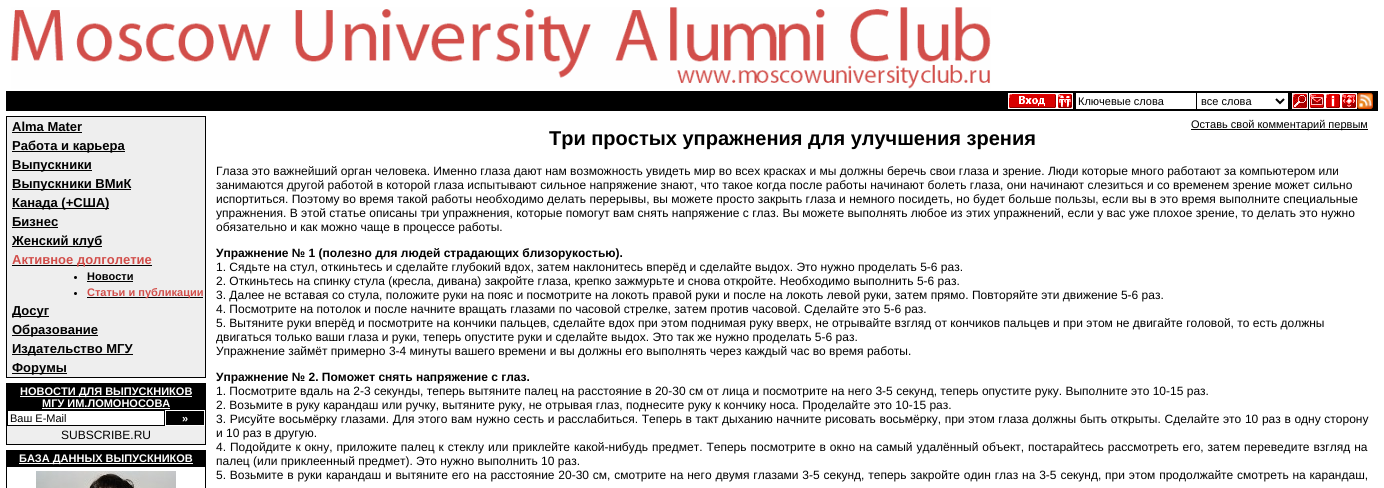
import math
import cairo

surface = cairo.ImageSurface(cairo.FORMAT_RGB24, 1384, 488)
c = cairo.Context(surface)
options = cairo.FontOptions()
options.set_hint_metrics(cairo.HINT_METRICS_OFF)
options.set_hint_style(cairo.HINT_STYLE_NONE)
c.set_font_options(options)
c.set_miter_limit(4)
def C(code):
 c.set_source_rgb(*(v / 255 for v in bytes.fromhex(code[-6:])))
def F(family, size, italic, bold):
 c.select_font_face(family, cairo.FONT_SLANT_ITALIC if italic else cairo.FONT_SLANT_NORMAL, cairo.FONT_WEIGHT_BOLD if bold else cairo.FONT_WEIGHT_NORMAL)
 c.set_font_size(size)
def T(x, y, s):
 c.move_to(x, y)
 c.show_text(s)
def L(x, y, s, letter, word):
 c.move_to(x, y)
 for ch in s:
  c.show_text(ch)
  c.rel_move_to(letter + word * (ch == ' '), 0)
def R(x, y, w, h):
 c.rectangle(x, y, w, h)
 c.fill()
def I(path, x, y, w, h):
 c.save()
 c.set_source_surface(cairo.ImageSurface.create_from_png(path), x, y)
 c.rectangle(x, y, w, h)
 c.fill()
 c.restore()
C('ffffff')
c.paint()
I('1.png',11,7,980,82)
C('000000')
R(6,91,1372,20)
I('2.png',1008,93,49,16)
I('3.png',1057,93,16,16)
C('ffffff')
R(1076,93,120,16)
F('Liberation Sans',11,0,0)
C('000000')
T(1078,105,'Ключевые слова')
C('ffffff')
R(1197,93,91,16)
c.new_path()
c.move_to(1276,99)
c.line_to(1280,103)
c.line_to(1284,99)
C('000000')
c.stroke()
T(1201,105,'все слова')
I('4.png',1292,93,16,16)
I('5.png',1309,93,16,16)
I('6.png',1325,93,16,16)
I('7.png',1341,93,16,16)
I('8.png',1357,93,16,16)
c.rectangle(6.5,116.5,199,261)
c.set_line_width(1)
c.stroke()
C('eeeeee')
R(7,117,198,260)
F('Liberation Sans',13,0,1)
C('000000')
T(12,131,'Alma Mater')
R(12,132,70,1)
R(12,151,113,1)
T(12,150,'Работа и карьера')
R(12,170,80,1)
T(12,169,'Выпускники')
R(12,189,119,1)
T(12,188,'Выпускники ВМиК')
R(12,208,97,1)
T(12,207,'Канада (+США)')
T(12,226,'Бизнес')
R(12,227,46,1)
R(12,246,90,1)
T(12,245,'Женский клуб')
R(12,265,140,1)
C('d24e4a')
T(12,264,'Активное долголетие')
C('000000')
c.new_path()
c.arc(75.5,277.5,1.5,0,2 * math.pi)
c.fill()
F('Liberation Sans',11,0,1)
T(87,280,'Новости')
R(87,281,46,1)
c.new_path()
c.arc(75.5,293.5,1.5,0,2 * math.pi)
c.fill()
R(87,297,116,1)
C('d24e4a')
T(87,296,'Статьи и публикации')
C('000000')
R(12,316,37,1)
F('Liberation Sans',13,0,1)
T(12,315,'Досуг')
R(12,335,86,1)
T(12,334,'Образование')
R(12,354,121,1)
T(12,353,'Издательство МГУ')
R(12,373,55,1)
T(12,372,'Форумы')
C('eeeeee')
R(7,426,198,18)
c.rectangle(6.5,383.5,199,61)
C('000000')
c.stroke()
R(7,384,198,26)
C('ffffff')
R(20,396,172,1)
F('Liberation Sans',11,0,1)
T(20,395,'НОВОСТИ ДЛЯ ВЫПУСКНИКОВ')
T(42,407,'МГУ ИМ.ЛОМОНОСОВА')
R(42,408,128,1)
c.rectangle(7.5,410.5,157,15)
C('000000')
c.stroke()
F('Liberation Sans',11,0,0)
T(10,422,'Ваш E-Mail')
R(166,411,38,14)
F('Liberation Sans',11,0,1)
C('ffffff')
T(182,422,'»')
F('Liberation Sans',12,0,0)
C('000000')
T(61,439,'SUBSCRIBE.RU')
R(6,450,200,16)
C('ffffff')
R(19,463,174,1)
F('Liberation Sans',11,0,1)
T(19,462,'БАЗА ДАННЫХ ВЫПУСКНИКОВ')
c.rectangle(6.5,466.5,199,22)
C('000000')
c.stroke()
I('9.png',36,471,140,17)
R(1191,129,177,1)
F('Liberation Sans',11,0,0)
T(1191,128,'Оставь свой комментарий первым')
F('Liberation Sans',20,0,1)
T(549,145,'Три простых упражнения для улучшения зрения')
F('Liberation Sans',12,0,0)
T(216,175,'Глаза это важнейший орган человека. Именно глаза дают нам возможность увидеть мир во всех красках и мы должны беречь свои глаза и зрение. Люди которые много работают за компьютером или')
T(216,189,'занимаются другой работой в которой глаза испытывают сильное напряжение знают, что такое когда после работы начинают болеть глаза, они начинают слезиться и со временем зрение может сильно')
T(216,203,'испортиться. Поэтому во время такой работы необходимо делать перерывы, вы можете просто закрыть глаза и немного посидеть, но будет больше пользы, если вы в это время выполните специальные')
T(216,217,'упражнения. В этой статье описаны три упражнения, которые помогут вам снять напряжение с глаз. Вы можете выполнять любое из этих упражнений, если у вас уже плохое зрение, то делать это нужно')
T(216,231,'обязательно и как можно чаще в процессе работы.')
F('Liberation Sans',12,0,1)
T(216,257,'Упражнение № 1 (полезно для людей страдающих близорукостью).')
F('Liberation Sans',12,0,0)
T(216,271,'1. Сядьте на стул, откиньтесь и сделайте глубокий вдох, затем наклонитесь вперёд и сделайте выдох. Это нужно проделать 5-6 раз.')
T(216,285,'2. Откиньтесь на спинку стула (кресла, дивана) закройте глаза, крепко зажмурьте и снова откройте. Необходимо выполнить 5-6 раз.')
T(216,299,'3. Далее не вставая со стула, положите руки на пояс и посмотрите на локоть правой руки и после на локоть левой руки, затем прямо. Повторяйте эти движение 5-6 раз.')
T(216,313,'4. Посмотрите на потолок и после начните вращать глазами по часовой стрелке, затем против часовой. Сделайте это 5-6 раз.')
T(216,327,'5. Вытяните руки вперёд и посмотрите на кончики пальцев, сделайте вдох при этом поднимая руку вверх, не отрывайте взгляд от кончиков пальцев и при этом не двигайте головой, то есть должны')
T(216,341,'двигаться только ваши глаза и руки, теперь опустите руки и сделайте выдох. Это так же нужно проделать 5-6 раз.')
T(216,355,'Упражнение займёт примерно 3-4 минуты вашего времени и вы должны его выполнять через каждый час во время работы.')
F('Liberation Sans',12,0,1)
T(216,381,'Упражнение № 2. Поможет снять напряжение с глаз.')
F('Liberation Sans',12,0,0)
T(216,395,'1. Посмотрите вдаль на 2-3 секунды, теперь вытяните палец на расстояние в 20-30 см от лица и посмотрите на него 3-5 секунд, теперь опустите руку. Выполните это 10-15 раз.')
T(216,409,'2. Возьмите в руку карандаш или ручку, вытяните руку, не отрывая глаз, поднесите руку к кончику носа. Проделайте это 10-15 раз.')
L(216,423,'3. Рисуйте восьмёрку глазами. Для этого вам нужно сесть и расслабиться. Теперь в такт дыханию начните рисовать восьмёрку, при этом глаза должны быть открыты. Сделайте это 10 раз в одну сторону',0,.3)
T(216,437,'и 10 раз в другую.')
L(216,451,'4. Подойдите к окну, приложите палец к стеклу или приклейте какой-нибудь предмет. Теперь посмотрите в окно на самый удалённый объект, постарайтесь рассмотреть его, затем переведите взгляд на',0,.6)
T(216,465,'палец (или приклеенный предмет). Это нужно выполнить 10 раз.')
L(216,479,'5. Возьмите в руки карандаш и вытяните его на расстояние 20-30 см, смотрите на него двумя глазами 3-5 секунд, теперь закройте один глаз на 3-5 секунд, при этом продолжайте смотреть на карандаш,',0,.5)
surface.write_to_png('o.png')
